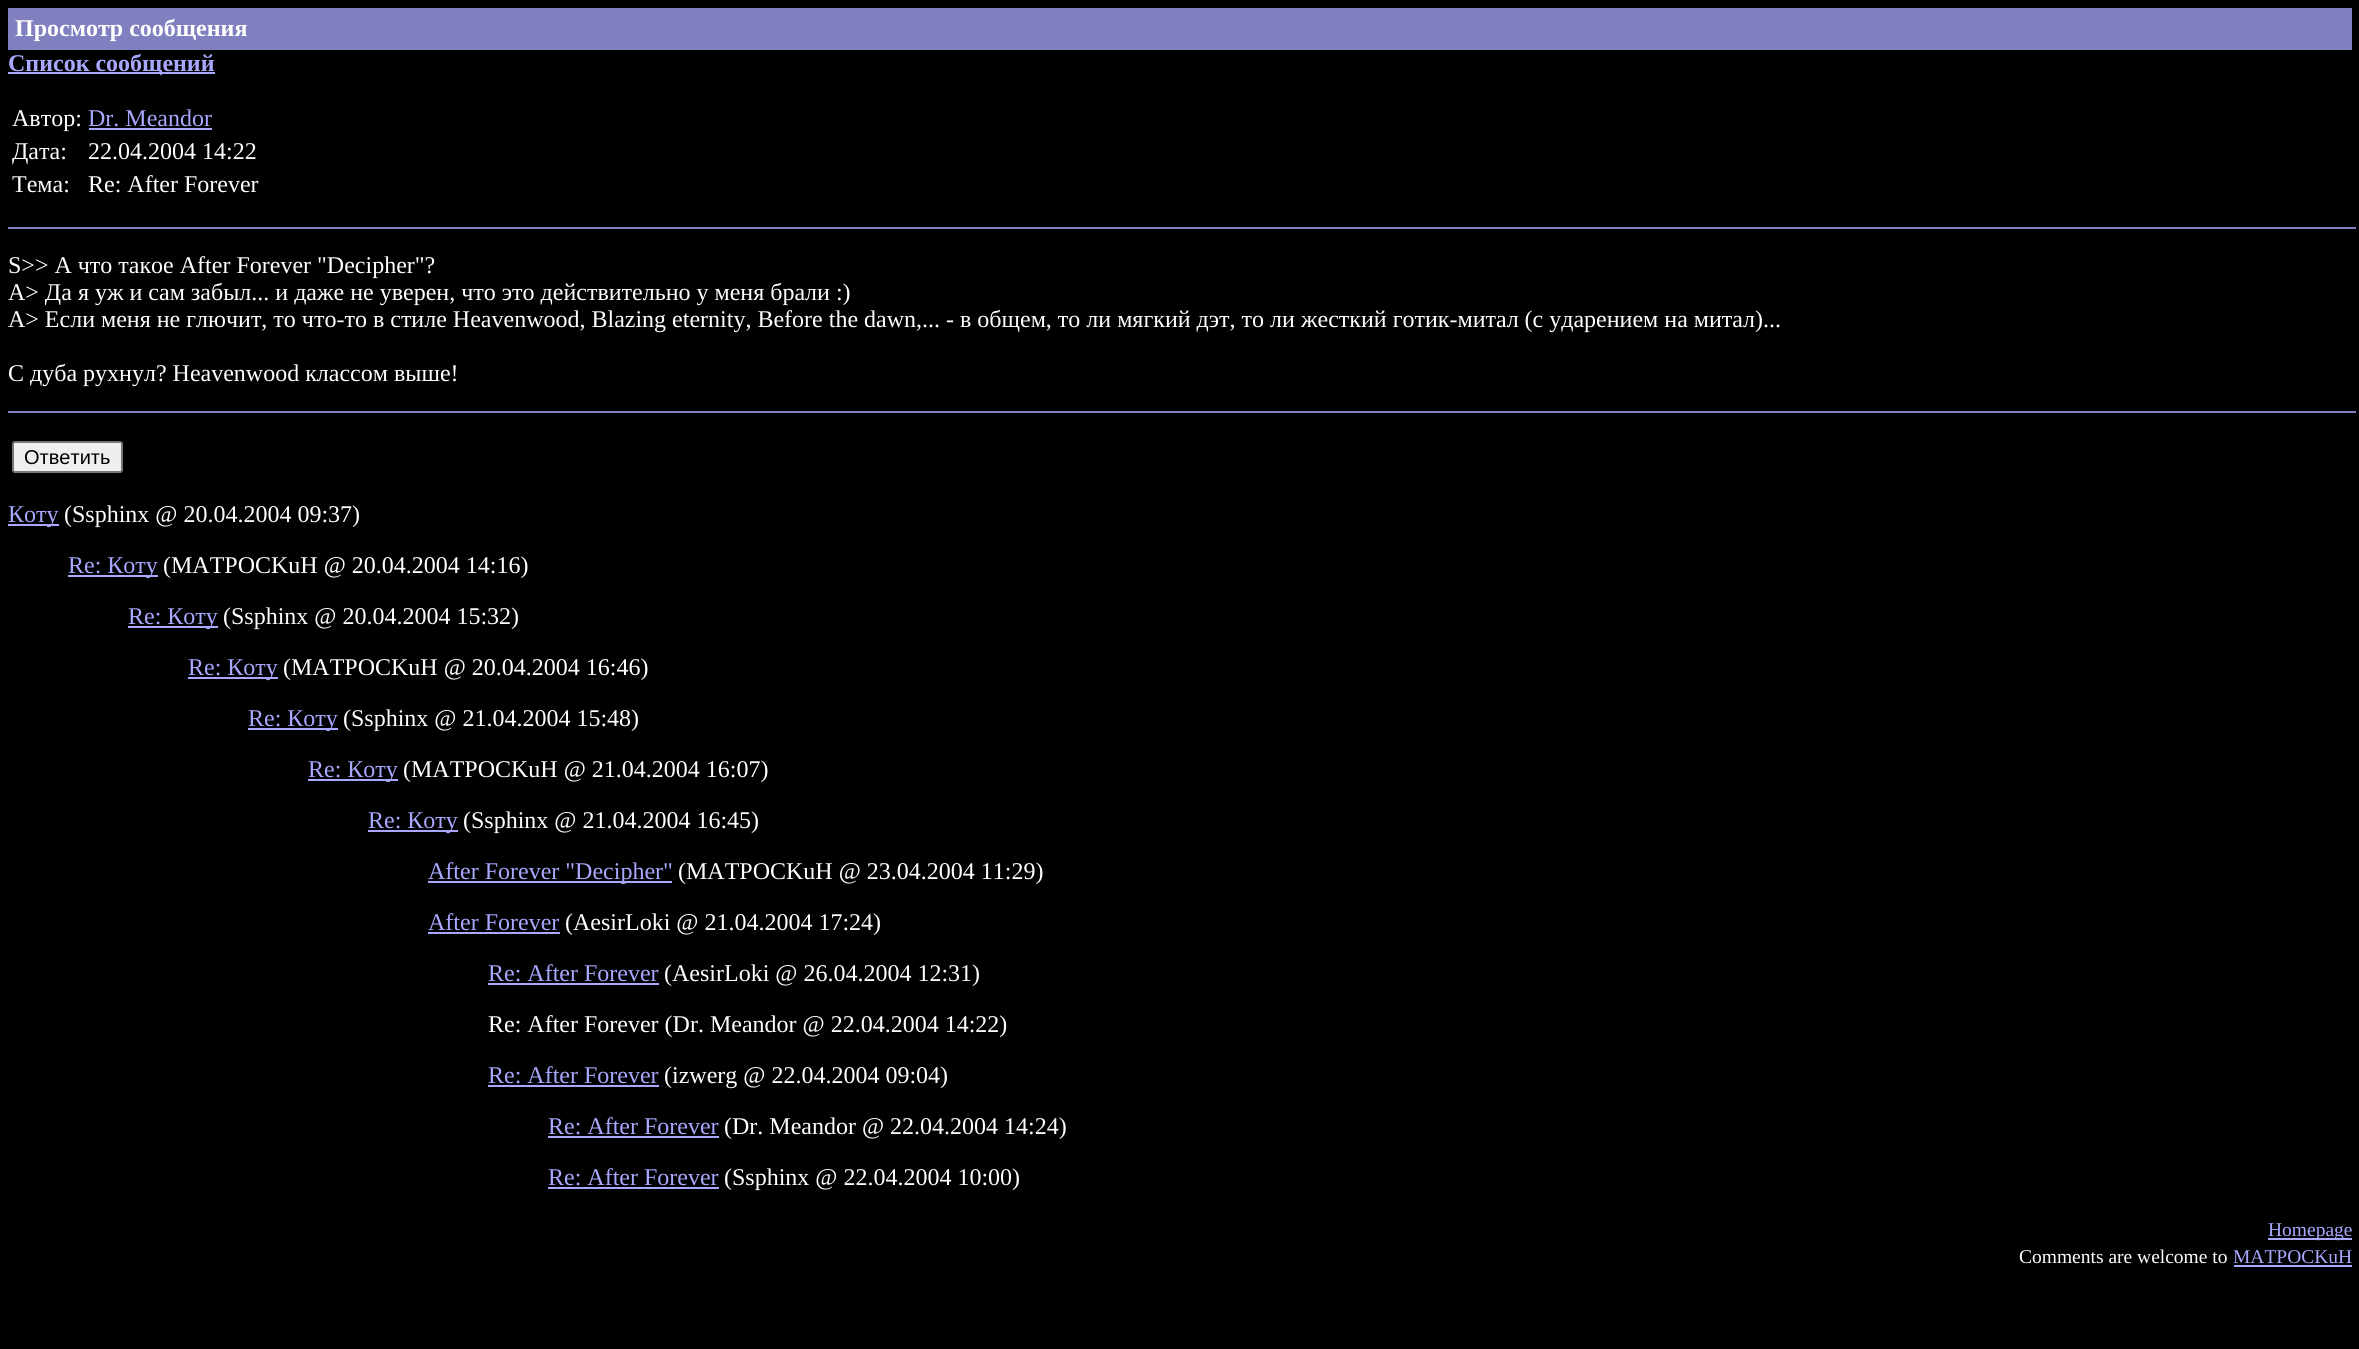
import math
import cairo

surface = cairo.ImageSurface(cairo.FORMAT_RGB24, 2359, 1349)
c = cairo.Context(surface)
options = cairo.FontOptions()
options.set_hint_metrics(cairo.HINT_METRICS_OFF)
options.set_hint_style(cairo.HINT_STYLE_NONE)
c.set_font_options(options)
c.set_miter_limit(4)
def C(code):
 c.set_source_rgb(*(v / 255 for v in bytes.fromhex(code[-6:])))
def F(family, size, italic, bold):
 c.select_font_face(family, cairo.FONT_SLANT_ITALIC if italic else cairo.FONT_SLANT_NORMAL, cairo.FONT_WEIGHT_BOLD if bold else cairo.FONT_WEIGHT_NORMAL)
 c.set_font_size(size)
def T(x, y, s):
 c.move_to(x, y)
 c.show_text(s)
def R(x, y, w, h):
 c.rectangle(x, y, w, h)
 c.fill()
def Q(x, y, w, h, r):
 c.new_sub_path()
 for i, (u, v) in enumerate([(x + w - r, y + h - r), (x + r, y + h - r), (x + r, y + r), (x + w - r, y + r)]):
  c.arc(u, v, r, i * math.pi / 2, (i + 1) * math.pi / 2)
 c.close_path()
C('000000')
c.paint()
C('8080c0')
R(8,8,2344,42)
F('Liberation Serif',24,0,1)
C('ffffff')
T(15,36,'Просмотр сообщения')
C('a8a8ff')
R(8,72,207,2)
T(8,71,'Список сообщений')
F('Liberation Serif',24,0,0)
C('ffffff')
T(12,126,'Автор:')
C('a8a8ff')
T(88,126,'Dr. Meandor')
R(89,128,123,2)
C('ffffff')
T(12,159,'Дата:')
T(88,159,'22.04.2004 14:22')
T(12,192,'Тема:')
T(88,192,'Re: After Forever')
C('8080c0')
R(8,227,2348,2)
C('ffffff')
T(8,273,'S>> А что такое After Forever "Decipher"?')
T(8,300,'A> Да я уж и сам забыл... и даже не уверен, что это действительно у меня брали :)')
T(8,327,'A> Если меня не глючит, то что-то в стиле Heavenwood, Blazing eternity, Before the dawn,... - в общем, то ли мягкий дэт, то ли жесткий готик-митал (с ударением на митал)...')
T(8,381,'C дуба рухнул? Heavenwood классом выше!')
C('8080c0')
R(8,411,2348,2)
C('efefef')
Q(13,442,109,30,2)
c.fill_preserve()
C('767676')
c.stroke()
F('Liberation Sans',20,0,0)
C('000000')
T(24,464,'Ответить')
C('a8a8ff')
R(8,524,51,2)
F('Liberation Serif',24,0,0)
T(8,522,'Коту')
C('ffffff')
T(64,522,'(Ssphinx @ 20.04.2004 09:37)')
C('a8a8ff')
R(68,575,90,2)
T(68,573,'Re: Коту')
C('ffffff')
T(163,573,'(MATPOCKuH @ 20.04.2004 14:16)')
C('a8a8ff')
R(128,626,90,2)
T(128,624,'Re: Коту')
C('ffffff')
T(223,624,'(Ssphinx @ 20.04.2004 15:32)')
C('a8a8ff')
R(188,677,90,2)
T(188,675,'Re: Коту')
C('ffffff')
T(283,675,'(MATPOCKuH @ 20.04.2004 16:46)')
C('a8a8ff')
R(248,728,90,2)
T(248,726,'Re: Коту')
C('ffffff')
T(343,726,'(Ssphinx @ 21.04.2004 15:48)')
C('a8a8ff')
R(308,779,90,2)
T(308,777,'Re: Коту')
C('ffffff')
T(403,777,'(MATPOCKuH @ 21.04.2004 16:07)')
C('a8a8ff')
R(368,830,90,2)
T(368,828,'Re: Коту')
C('ffffff')
T(463,828,'(Ssphinx @ 21.04.2004 16:45)')
C('a8a8ff')
R(428,881,244,2)
T(428,879,'After Forever "Decipher"')
C('ffffff')
T(678,879,'(MATPOCKuH @ 23.04.2004 11:29)')
C('a8a8ff')
T(428,930,'After Forever')
R(428,932,132,2)
C('ffffff')
T(565,930,'(AesirLoki @ 21.04.2004 17:24)')
C('a8a8ff')
T(488,981,'Re: After Forever')
R(488,983,171,2)
C('ffffff')
T(664,981,'(AesirLoki @ 26.04.2004 12:31)')
T(488,1032,'Re: After Forever (Dr. Meandor @ 22.04.2004 14:22)')
C('a8a8ff')
T(488,1083,'Re: After Forever')
R(488,1085,171,2)
C('ffffff')
T(664,1083,'(izwerg @ 22.04.2004 09:04)')
C('a8a8ff')
T(548,1134,'Re: After Forever')
R(548,1136,171,2)
C('ffffff')
T(724,1134,'(Dr. Meandor @ 22.04.2004 14:24)')
C('a8a8ff')
T(548,1185,'Re: After Forever')
R(548,1187,171,2)
C('ffffff')
T(724,1185,'(Ssphinx @ 22.04.2004 10:00)')
C('a8a8ff')
R(2268,1238,84,2)
F('Liberation Serif',19.5,0,0)
T(2268,1236,'Homepage')
C('ffffff')
T(2019,1263,'Comments are welcome to')
C('a8a8ff')
T(2233,1263,'MATPOCKuH')
R(2234,1265,118,2)
surface.write_to_png('o.png')
